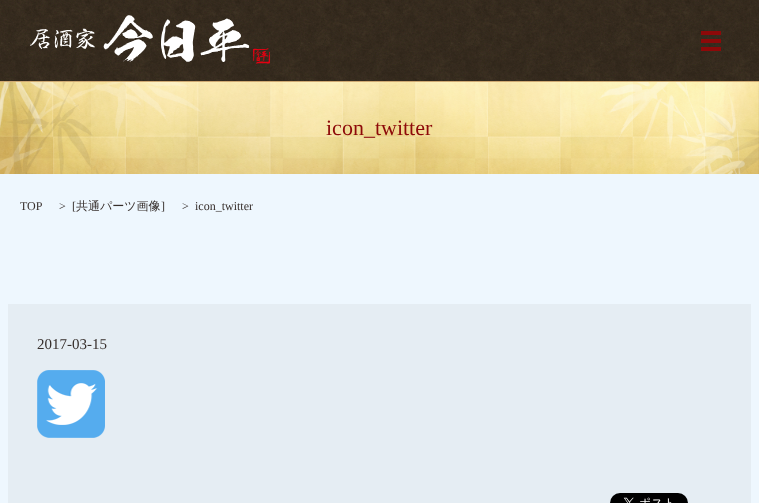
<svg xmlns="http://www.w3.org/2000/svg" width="759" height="503">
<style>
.a{font:22px Liberation Serif;fill:#8d0909}
.b{font:12px Liberation Serif;fill:#362e2b}
.c{font:500 12px WenQuanYi Zen Hei;fill:#362e2b}
.d{font:15px Liberation Serif;fill:#362e2b}
</style>
<rect width="100%" height="100%" fill="#eef7fe"/>
<image href="1.png" x="0" y="0" width="759" height="81"/>
<path fill="#cfa972" d="M0 81h759v1H0z"/>
<image href="2.png" x="30" y="15" width="240" height="49"/>
<path fill="#8d0909" d="M701 31h20v4H701z"/>
<path fill="#8d0909" d="M701 39h20v4H701z"/>
<path fill="#8d0909" d="M701 47h20v4H701z"/>
<image href="3.png" x="0" y="82" width="759" height="92"/>
<path fill="#e5edf3" d="M8 304h743v199H8z"/>
<image href="4.png" x="37" y="370" width="68" height="68"/>
<image href="5.png" x="610" y="493" width="78" height="10"/>
<text class="a" x="326" y="135">icon_twitter</text>
<text class="b" x="20" y="210">TOP</text>
<text class="b" x="59" y="210">&gt;</text>
<text class="b" x="72" y="210">[</text>
<text class="c" x="76" y="210">共通パーツ画像</text>
<text class="b" x="161" y="210">]</text>
<text class="b" x="182" y="210">&gt;</text>
<text class="b" x="195" y="210">icon_twitter</text>
<text class="d" x="37" y="349">2017-03-15</text>
</svg>
